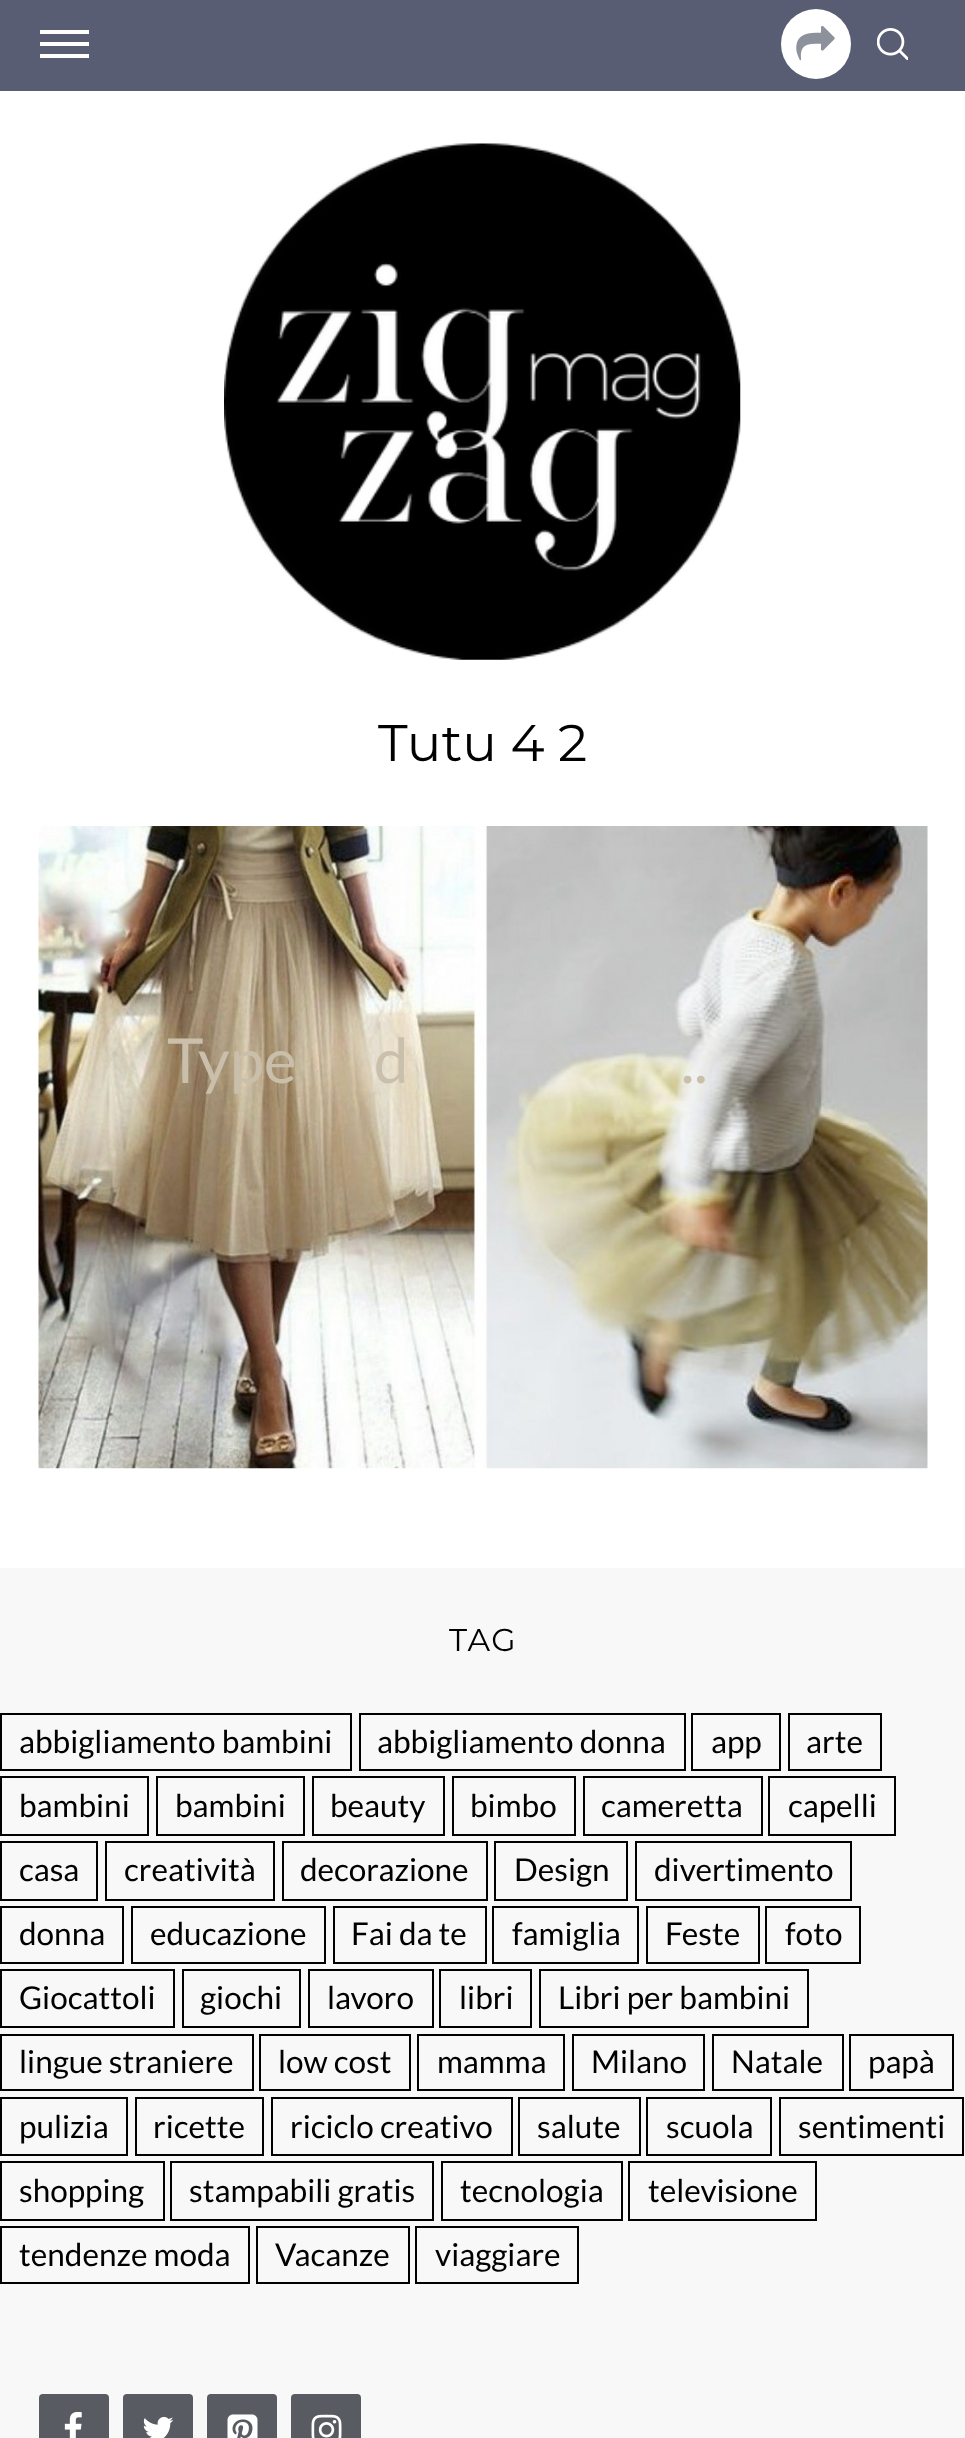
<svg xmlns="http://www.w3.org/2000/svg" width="965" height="2438">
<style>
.a{font:100 51.5px Montserrat;fill:#000}
.b{font:62px Lato;fill:#c9bfaa}
.c{font:100 31.5px Montserrat;letter-spacing:1.5px;fill:#000}
.d{font:31.5px Lato;fill:#000}
</style>
<rect width="100%" height="100%" fill="#fff"/>
<path fill="#585d74" d="M0 0h965v91H0z"/>
<path fill="#fff" d="M40 42h49v4H40z"/>
<path fill="#fff" d="M40 30h49v4H40z"/>
<path fill="#fff" d="M40 54h49v4H40z"/>
<circle fill="#fff" cx="816" cy="44" r="35"/>
<image href="1.png" x="796" y="25" width="39" height="36"/>
<image href="2.png" x="877" y="28" width="31" height="32"/>
<image href="3.png" x="224" y="143" width="517" height="517"/>
<image href="4.png" x="38" y="826" width="890" height="643"/>
<path fill="#f8f8f8" d="M0 1568h965v870H0z"/>
<path fill="none" stroke="#000" stroke-width="2" d="M1 1714h350v56H1z"/>
<path fill="none" stroke="#000" stroke-width="2" d="M360 1714h325v56H360z"/>
<path fill="none" stroke="#000" stroke-width="2" d="M692 1714h88v56H692z"/>
<path fill="none" stroke="#000" stroke-width="2" d="M789 1714h92v56H789z"/>
<path fill="none" stroke="#000" stroke-width="2" d="M1 1777h147v58H1z"/>
<path fill="none" stroke="#000" stroke-width="2" d="M157 1777h147v58H157z"/>
<path fill="none" stroke="#000" stroke-width="2" d="M313 1777h131v58H313z"/>
<path fill="none" stroke="#000" stroke-width="2" d="M453 1777h122v58H453z"/>
<path fill="none" stroke="#000" stroke-width="2" d="M584 1777h178v58H584z"/>
<path fill="none" stroke="#000" stroke-width="2" d="M769 1777h126v58H769z"/>
<path fill="none" stroke="#000" stroke-width="2" d="M1 1842h96v58H1z"/>
<path fill="none" stroke="#000" stroke-width="2" d="M106 1842h168v58H106z"/>
<path fill="none" stroke="#000" stroke-width="2" d="M283 1842h204v58H283z"/>
<path fill="none" stroke="#000" stroke-width="2" d="M495 1842h132v58H495z"/>
<path fill="none" stroke="#000" stroke-width="2" d="M636 1842h215v58H636z"/>
<path fill="none" stroke="#000" stroke-width="2" d="M1 1907h122v56H1z"/>
<path fill="none" stroke="#000" stroke-width="2" d="M132 1907h193v56H132z"/>
<path fill="none" stroke="#000" stroke-width="2" d="M334 1907h152v56H334z"/>
<path fill="none" stroke="#000" stroke-width="2" d="M493 1907h145v56H493z"/>
<path fill="none" stroke="#000" stroke-width="2" d="M647 1907h112v56H647z"/>
<path fill="none" stroke="#000" stroke-width="2" d="M766 1907h94v56H766z"/>
<path fill="none" stroke="#000" stroke-width="2" d="M1 1970h173v57H1z"/>
<path fill="none" stroke="#000" stroke-width="2" d="M183 1970h117v57H183z"/>
<path fill="none" stroke="#000" stroke-width="2" d="M309 1970h124v57H309z"/>
<path fill="none" stroke="#000" stroke-width="2" d="M440 1970h91v57H440z"/>
<path fill="none" stroke="#000" stroke-width="2" d="M540 1970h268v57H540z"/>
<path fill="none" stroke="#000" stroke-width="2" d="M1 2035h252v55H1z"/>
<path fill="none" stroke="#000" stroke-width="2" d="M260 2035h150v55H260z"/>
<path fill="none" stroke="#000" stroke-width="2" d="M418 2035h146v55H418z"/>
<path fill="none" stroke="#000" stroke-width="2" d="M573 2035h131v55H573z"/>
<path fill="none" stroke="#000" stroke-width="2" d="M713 2035h130v55H713z"/>
<path fill="none" stroke="#000" stroke-width="2" d="M850 2035h103v55H850z"/>
<path fill="none" stroke="#000" stroke-width="2" d="M1 2098h126v57H1z"/>
<path fill="none" stroke="#000" stroke-width="2" d="M136 2098h127v57H136z"/>
<path fill="none" stroke="#000" stroke-width="2" d="M272 2098h240v57H272z"/>
<path fill="none" stroke="#000" stroke-width="2" d="M519 2098h121v57H519z"/>
<path fill="none" stroke="#000" stroke-width="2" d="M647 2098h124v57H647z"/>
<path fill="none" stroke="#000" stroke-width="2" d="M780 2098h183v57H780z"/>
<path fill="none" stroke="#000" stroke-width="2" d="M1 2162h163v58H1z"/>
<path fill="none" stroke="#000" stroke-width="2" d="M171 2162h262v58H171z"/>
<path fill="none" stroke="#000" stroke-width="2" d="M442 2162h180v58H442z"/>
<path fill="none" stroke="#000" stroke-width="2" d="M629 2162h187v58H629z"/>
<path fill="none" stroke="#000" stroke-width="2" d="M1 2227h248v56H1z"/>
<path fill="none" stroke="#000" stroke-width="2" d="M257 2227h152v56H257z"/>
<path fill="none" stroke="#000" stroke-width="2" d="M416 2227h162v56H416z"/>
<rect fill="#585b61" x="39" y="2394" width="70" height="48" rx="4"/>
<image href="5.png" x="64" y="2411" width="18" height="27"/>
<rect fill="#585b61" x="123" y="2394" width="70" height="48" rx="4"/>
<image href="6.png" x="143" y="2416" width="31" height="22"/>
<rect fill="#585b61" x="207" y="2394" width="70" height="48" rx="4"/>
<image href="7.png" x="227" y="2414" width="31" height="24"/>
<rect fill="#585b61" x="291" y="2394" width="70" height="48" rx="4"/>
<image href="8.png" x="311" y="2414" width="31" height="24"/>
<text class="a" x="378" y="761">Tutu 4 2</text>
<text class="b" x="167" y="1083">Type</text>
<text class="b" x="374" y="1083">d</text>
<text class="b" x="681" y="1083">..</text>
<text class="c" x="449" y="1651">TAG</text>
<text class="d" x="19" y="1753">abbigliamento bambini</text>
<text class="d" x="377" y="1753">abbigliamento donna</text>
<text class="d" x="711" y="1753">app</text>
<text class="d" x="806" y="1753">arte</text>
<text class="d" x="19" y="1817">bambini</text>
<text class="d" x="175" y="1817">bambini</text>
<text class="d" x="330" y="1817">beauty</text>
<text class="d" x="470" y="1817">bimbo</text>
<text class="d" x="601" y="1817">cameretta</text>
<text class="d" x="788" y="1817">capelli</text>
<text class="d" x="19" y="1881">casa</text>
<text class="d" x="124" y="1881">creatività</text>
<text class="d" x="300" y="1881">decorazione</text>
<text class="d" x="514" y="1881">Design</text>
<text class="d" x="654" y="1881">divertimento</text>
<text class="d" x="19" y="1945">donna</text>
<text class="d" x="150" y="1945">educazione</text>
<text class="d" x="351" y="1945">Fai da te</text>
<text class="d" x="512" y="1945">famiglia</text>
<text class="d" x="665" y="1945">Feste</text>
<text class="d" x="785" y="1945">foto</text>
<text class="d" x="19" y="2009">Giocattoli</text>
<text class="d" x="200" y="2009">giochi</text>
<text class="d" x="327" y="2009">lavoro</text>
<text class="d" x="459" y="2009">libri</text>
<text class="d" x="558" y="2009">Libri per bambini</text>
<text class="d" x="19" y="2073">lingue straniere</text>
<text class="d" x="278" y="2073">low cost</text>
<text class="d" x="437" y="2073">mamma</text>
<text class="d" x="591" y="2073">Milano</text>
<text class="d" x="731" y="2073">Natale</text>
<text class="d" x="868" y="2073">papà</text>
<text class="d" x="19" y="2138">pulizia</text>
<text class="d" x="153" y="2138">ricette</text>
<text class="d" x="290" y="2138">riciclo creativo</text>
<text class="d" x="537" y="2138">salute</text>
<text class="d" x="666" y="2138">scuola</text>
<text class="d" x="798" y="2138">sentimenti</text>
<text class="d" x="19" y="2202">shopping</text>
<text class="d" x="189" y="2202">stampabili gratis</text>
<text class="d" x="460" y="2202">tecnologia</text>
<text class="d" x="648" y="2202">televisione</text>
<text class="d" x="19" y="2266">tendenze moda</text>
<text class="d" x="275" y="2266">Vacanze</text>
<text class="d" x="435" y="2266">viaggiare</text>
</svg>
